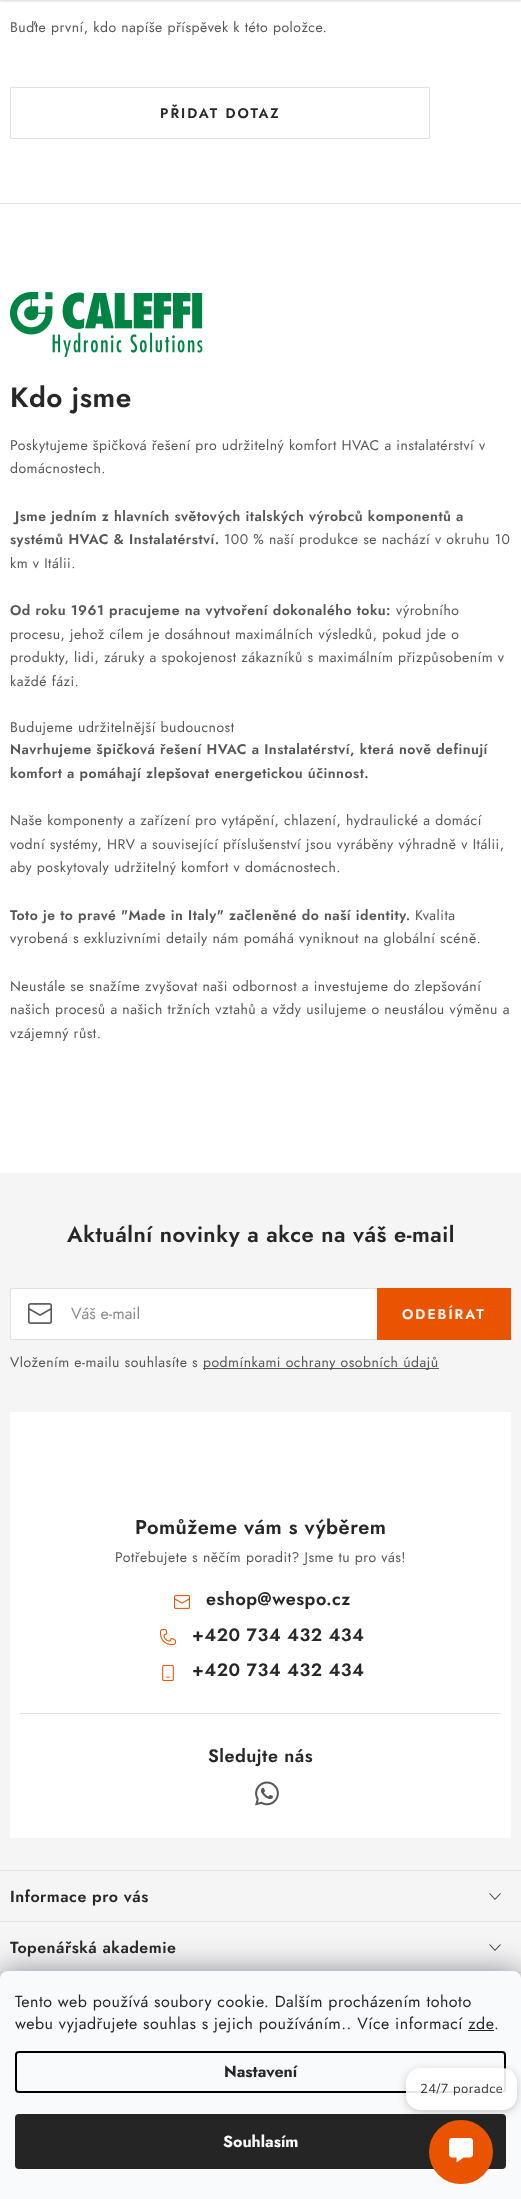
<svg xmlns="http://www.w3.org/2000/svg" width="521" height="2199">
<style>
.a{font:14px Jost;letter-spacing:0.5px;fill:#555658}
.b{font:600 14px Jost;letter-spacing:2px;fill:#252729}
.c{font:600 28px Jost;letter-spacing:0.5px;fill:#252729}
.d{font:600 14px Jost;letter-spacing:0.5px;fill:#555658}
.e{font:600 22px Jost;letter-spacing:0.5px;fill:#252729}
.f{font:16px Jost;fill:#888c92}
.g{font:600 14px Jost;letter-spacing:2px;fill:#fff}
.h{font:600 20px Jost;letter-spacing:0.5px;fill:#252729}
.i{font:600 18px Jost;letter-spacing:0.5px;fill:#252729}
.j{font:600 16px Jost;letter-spacing:0.5px;fill:#252729}
.k{font:16px Jost;letter-spacing:0.5px;fill:#252729}
.l{font:bold 16px Jost;fill:#252729}
.m{font:bold 16px Jost;fill:#f8fafb}
.n{font:13px Nunito;letter-spacing:0.5px;fill:#333}
</style>
<defs>
<clipPath id="clip1"><path d="M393 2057h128v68h-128zm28 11h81c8.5 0 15 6.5 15 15v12c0 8.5-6.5 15-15 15h-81c-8.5 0-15-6.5-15-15v-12c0-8.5 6.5-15 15-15z" clip-rule="evenodd"/></clipPath>
</defs>
<rect width="100%" height="100%" fill="#fff"/>
<path fill="#00000029" filter="blur(1px)" d="M0 -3h521v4H0z"/>
<path fill="none" stroke="#e1e1e2" d="M10.5 87.5h419v51H10.5z"/>
<path fill="#e1e1e2" d="M0 203h521v1H0z"/>
<image href="1.png" x="10" y="292" width="193" height="65"/>
<path fill="#f5f5f5" d="M0 1173h521v806H0z"/>
<path fill="#fff" d="M11 1289h366v50H11z"/>
<path fill="none" stroke="#e1e1e2" d="M10.5 1288.5h500v51H10.5z"/>
<image href="2.png" x="28" y="1303" width="24" height="21"/>
<path fill="#ea5400" d="M377 1288h134v52H377z"/>
<path fill="#555658" d="M203 1368h236v1H203z"/>
<path fill="#fff" d="M10 1412h501v426H10z"/>
<image href="3.png" x="174" y="1595" width="16" height="14"/>
<image href="4.png" x="160" y="1629" width="16" height="16"/>
<image href="5.png" x="162" y="1665" width="12" height="16"/>
<path fill="#e1e1e2" d="M20 1713h481v1H20z"/>
<image href="6.png" x="255" y="1781" width="24" height="25"/>
<path fill="#e1e1e2" d="M0 1870h521v1H0z"/>
<image href="7.png" x="489" y="1893" width="12" height="7"/>
<path fill="#e1e1e2" d="M0 1921h521v1H0z"/>
<image href="7.png" x="489" y="1944" width="12" height="7"/>
<path fill="#e1e1e2" d="M0 1972h521v1H0z"/>
<rect fill="#1b193980" filter="blur(15px)" y="1971" width="521" height="228" rx="8"/>
<path fill="#f8fafb" d="M8 1971h505c4.5 0 8 3.5 8 8v220h-521v-220c0-4.5 3.5-8 8-8z"/>
<rect fill="none" stroke="#000" stroke-width="2" x="16" y="2052" width="489" height="40" rx="3"/>
<rect fill="#252525" x="15" y="2114" width="491" height="55" rx="4"/>
<g clip-path="url(#clip1)">
<rect fill="#00000033" filter="blur(4px)" x="406" y="2070" width="111" height="42" rx="15"/>
</g>
<rect fill="#ffffffe6" x="406" y="2068" width="111" height="42" rx="15"/>
<circle fill="#ea5400" stroke="#ea5400" stroke-width="4" cx="461" cy="2152" r="30"/>
<image href="8.png" x="449" y="2138" width="24" height="24"/>
<text class="a" x="10" y="32">Buďte první, kdo napíše příspěvek k této položce.</text>
<text class="b" x="160" y="118">PŘIDAT DOTAZ</text>
<text class="c" x="10" y="407">Kdo jsme</text>
<text class="a" x="10" y="450">Poskytujeme špičková řešení pro udržitelný komfort HVAC a instalatérství v</text>
<text class="a" x="10" y="473">domácnostech.</text>
<text class="d" x="15" y="521">Jsme jedním z hlavních světových italských výrobců komponentů a</text>
<text class="d" x="10" y="544">systémů HVAC &amp; Instalatérství.</text>
<text class="a" x="224" y="544">100 % naší produkce se nachází v okruhu 10</text>
<text class="a" x="10" y="568">km v Itálii.</text>
<text class="d" x="10" y="615">Od roku 1961 pracujeme na vytvoření dokonalého toku:</text>
<text class="a" x="396" y="615">výrobního</text>
<text class="a" x="10" y="639">procesu, jehož cílem je dosáhnout maximálních výsledků, pokud jde o</text>
<text class="a" x="10" y="662">produkty, lidi, záruky a spokojenost zákazníků s maximálním přizpůsobením v</text>
<text class="a" x="10" y="686">každé fázi.</text>
<text class="a" x="10" y="732">Budujeme udržitelnější budoucnost</text>
<text class="d" x="10" y="754">Navrhujeme špičková řešení HVAC a Instalatérství, která nově definují</text>
<text class="d" x="10" y="778">komfort a pomáhají zlepšovat energetickou účinnost.</text>
<text class="a" x="10" y="825">Naše komponenty a zařízení pro vytápění, chlazení, hydraulické a domácí</text>
<text class="a" x="10" y="849">vodní systémy, HRV a související příslušenství jsou vyráběny výhradně v Itálii,</text>
<text class="a" x="10" y="872">aby poskytovaly udržitelný komfort v domácnostech.</text>
<text class="d" x="10" y="920">Toto je to pravé "Made in Italy" začleněné do naší identity.</text>
<text class="a" x="415" y="920">Kvalita</text>
<text class="a" x="10" y="943">vyrobená s exkluzivními detaily nám pomáhá vyniknout na globální scéně.</text>
<text class="a" x="10" y="991">Neustále se snažíme zvyšovat naši odbornost a investujeme do zlepšování</text>
<text class="a" x="10" y="1014">našich procesů a našich tržních vztahů a vždy usilujeme o neustálou výměnu a</text>
<text class="a" x="10" y="1038">vzájemný růst.</text>
<text class="e" x="67" y="1242">Aktuální novinky a akce na váš e-mail</text>
<text class="f" x="71" y="1319">Váš e-mail</text>
<text class="g" x="402" y="1319">ODEBÍRAT</text>
<text class="a" x="10" y="1367">Vložením e-mailu souhlasíte s</text>
<text class="a" x="203" y="1367">podmínkami ochrany osobních údajů</text>
<text class="h" x="135" y="1534">Pomůžeme vám s výběrem</text>
<text class="a" x="115" y="1562">Potřebujete s něčím poradit? Jsme tu pro vás!</text>
<text class="i" x="206" y="1605">eshop@wespo.cz</text>
<text class="i" x="192" y="1641">+420 734 432 434</text>
<text class="i" x="192" y="1676">+420 734 432 434</text>
<text class="i" x="208" y="1762">Sledujte nás</text>
<text class="j" x="10" y="1902">Informace pro vás</text>
<text class="j" x="10" y="1953">Topenářská akademie</text>
<text class="k" x="15" y="2007">Tento web používá soubory cookie. Dalším procházením tohoto</text>
<text class="k" x="15" y="2029">webu vyjadřujete souhlas s jejich používáním.. Více informací zde</text>
<text class="k" x="494" y="2029">.</text>
<path fill="#252525" d="M468 2030h26v1H468z"/>
<text class="l" x="224" y="2077">Nastavení</text>
<text class="m" x="223" y="2147">Souhlasím</text>
<text class="n" x="420" y="2093">24/7 poradce</text>
</svg>
